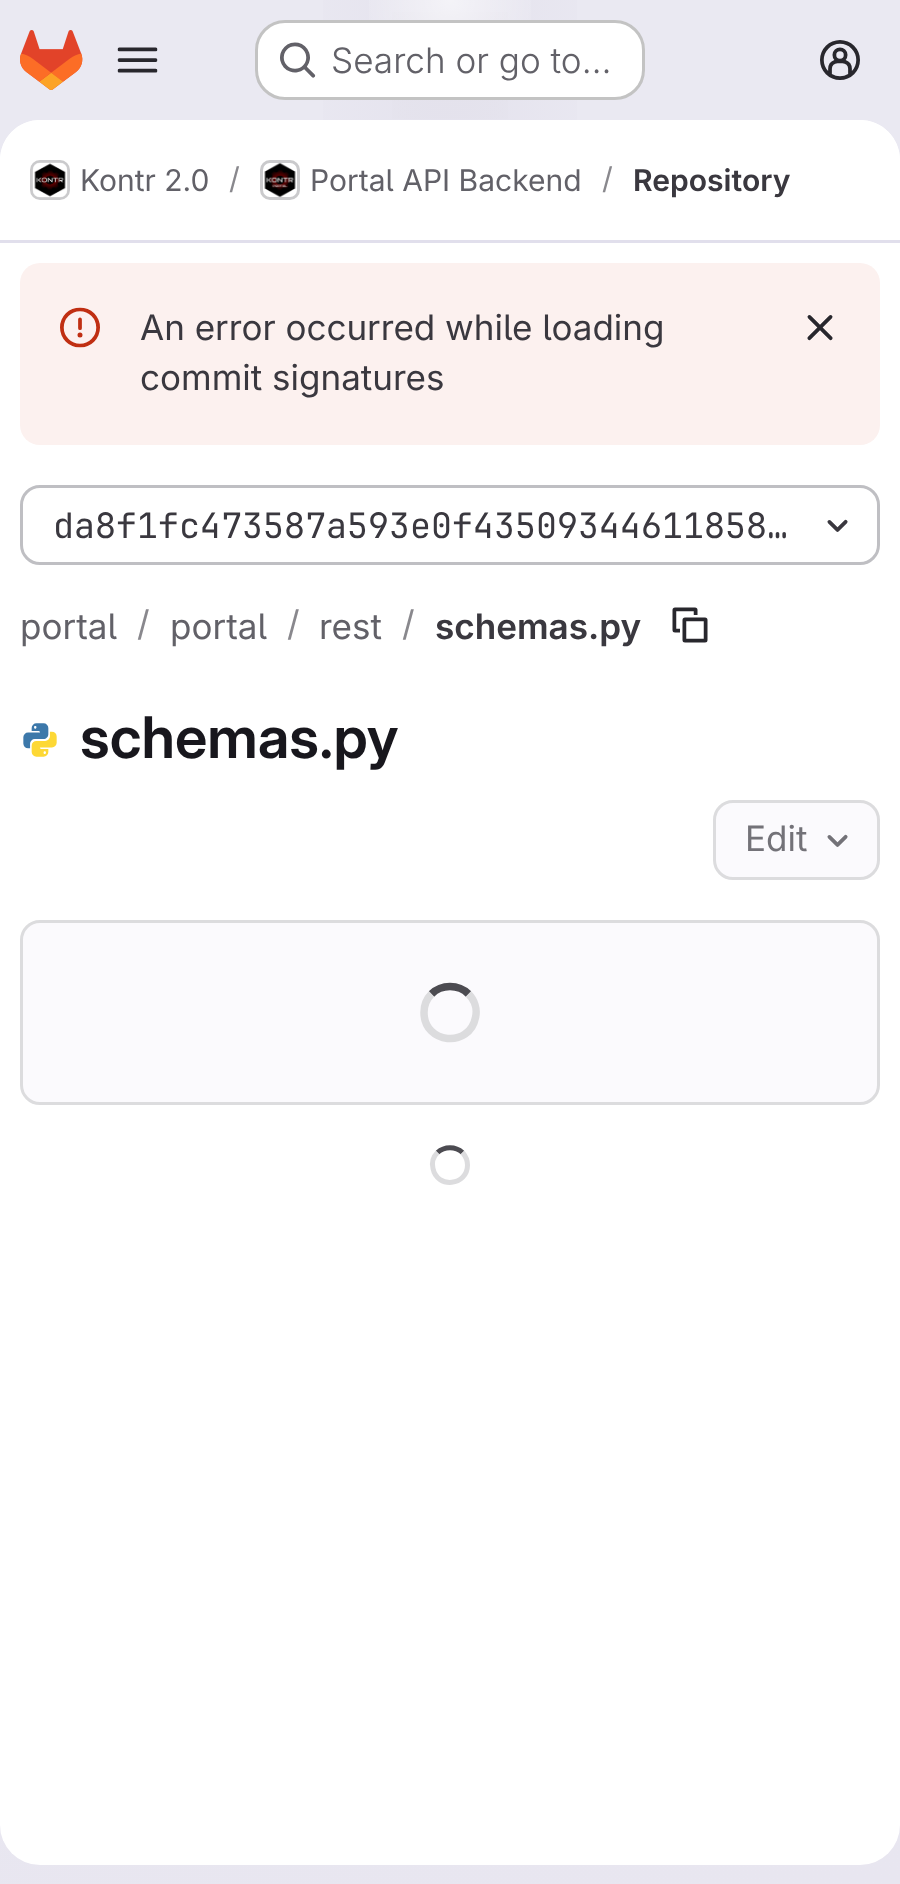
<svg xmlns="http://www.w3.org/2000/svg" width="900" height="1884">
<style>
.a{font:300 35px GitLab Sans;fill:#626168}
.b{font:30px GitLab Sans;fill:#626168}
.c{font:30px GitLab Sans;fill:#89888d}
.d{font:600 30px 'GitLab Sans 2';fill:#3a383f}
.e{font:35px GitLab Sans;fill:#3a383f}
.f{font:35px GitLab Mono;fill:#3a383f}
.g{font:35px GitLab Sans;fill:#626168}
.h{font:35px GitLab Sans;fill:#89888d}
.i{font:600 35px 'GitLab Sans 2';fill:#3a383f}
.j{font:600 57.5px GitLab Sans;fill:#18171d}
.k{font:35px GitLab Sans;fill:#737278}
</style>
<defs>
<linearGradient id="g1" gradientUnits="userSpaceOnUse" x1="625" y1="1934" x2="275" y2="-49"><stop offset="0" stop-color="#e8e6f0"/><stop offset="0.7" stop-color="#eae9f2"/></linearGradient>
<radialGradient id="g2" gradientUnits="userSpaceOnUse" cx="0" cy="0" r="1" gradientTransform="matrix(450 0 0 1885 450 0)"><stop offset="0" stop-color="#e4e2ed"/><stop offset="0.39" stop-color="#e4e2ed" stop-opacity="0"/></radialGradient>
<radialGradient id="g3" gradientUnits="userSpaceOnUse" cx="0" cy="0" r="1" gradientTransform="matrix(450 0 0 1885 450 0)"><stop offset="0" stop-color="#e4e2ec"/><stop offset="0.28" stop-color="#e4e2ec" stop-opacity="0"/></radialGradient>
<radialGradient id="g4" gradientUnits="userSpaceOnUse" cx="450" cy="0" r="1938"><stop offset="0" stop-color="#fff" stop-opacity="0.6"/><stop offset="0.05" stop-color="#fff" stop-opacity="0"/></radialGradient>
</defs>
<rect width="100%" height="100%" fill="#fff"/>
<path fill="url(#g1)" d="M0 0h900v1884H0z"/>
<path fill="url(#g2)" d="M323 0h254v120H323z"/>
<path fill="url(#g3)" d="M392 12h116v107H392z"/>
<path fill="url(#g4)" d="M369 0h162v20H369z"/>
<image href="1.png" x="20" y="30" width="63" height="60"/>
<image href="2.png" x="117" y="47" width="41" height="26"/>
<rect fill="#fff" x="255" y="20" width="390" height="80" rx="30"/>
<rect fill="none" stroke="#0505063d" stroke-width="3" x="256.5" y="21.5" width="387" height="77" rx="28.5"/>
<image href="3.png" x="280" y="42" width="36" height="36"/>
<image href="4.png" x="820" y="40" width="40" height="40"/>
<rect fill="#fff" y="120" width="900" height="1745" rx="40"/>
<path fill="#fff" d="M40 120h820c22 0 40 18 40 40v83h-900v-83c0-22 18-40 40-40z"/>
<path fill="#e1dfec" d="M0 240h900v3H0z"/>
<rect fill="none" stroke="#dcdcde" stroke-width="3" x="31.5" y="161.5" width="37" height="37" rx="8.5"/>
<image href="5.png" x="32" y="162" width="36" height="36"/>
<rect fill="none" stroke="#05050614" stroke-width="3" x="31.5" y="161.5" width="37" height="37" rx="8.5"/>
<rect fill="none" stroke="#dcdcde" stroke-width="3" x="261.5" y="161.5" width="37" height="37" rx="8.5"/>
<image href="6.png" x="264" y="162" width="32" height="36"/>
<rect fill="none" stroke="#05050614" stroke-width="3" x="261.5" y="161.5" width="37" height="37" rx="8.5"/>
<rect fill="#fcf1ef" x="20" y="263" width="860" height="182" rx="20"/>
<image href="7.png" x="60" y="307" width="40" height="41"/>
<image href="8.png" x="807" y="315" width="26" height="26"/>
<rect fill="none" stroke="#bfbfc3" stroke-width="3" x="21.5" y="486.5" width="857" height="77" rx="18.5"/>
<image href="9.png" x="827" y="519" width="21" height="13"/>
<image href="10.png" x="672" y="607" width="36" height="36"/>
<image href="11.png" x="23" y="723" width="34" height="34"/>
<rect fill="#fbfafd" stroke="#dcdcde" stroke-width="3" x="714.5" y="801.5" width="164" height="77" rx="18.5"/>
<image href="12.png" x="827" y="834" width="21" height="13"/>
<rect fill="#fbfafd" stroke="#dcdcde" stroke-width="3" x="21.5" y="921.5" width="857" height="182" rx="18.5"/>
<path fill="none" stroke="#4c4b51" stroke-width="7.5" d="M431.5 994c10-10 27-10 37 0"/>
<path fill="none" stroke="#dcdcde" stroke-width="7.5" d="M468.5 994c6 6 9 15 7 23.5c-6 31-51.5 26.5-51.5-5c0-7 2.5-13.5 7.5-18.5"/>
<path fill="none" stroke="#4c4b51" stroke-width="5" d="M437.5 1152.5c7-6.5 18-6.5 25 0"/>
<path fill="none" stroke="#dcdcde" stroke-width="5" d="M462.5 1152.5c3 3.5 5 8 5 12.5c0 21-30.5 24-34.5 3.5c-1.5-6 .5-12 4.5-16"/>
<text class="a" x="331" y="73">Search or go to…</text>
<text class="b" x="80" y="191">Kontr 2.0</text>
<text class="c" x="229" y="189">/</text>
<text class="b" x="310" y="191">Portal API Backend</text>
<text class="c" x="602" y="189">/</text>
<text class="d" x="633" y="191">Repository</text>
<text class="e" x="140" y="340">An error occurred while loading</text>
<text class="e" x="140" y="390">commit signatures</text>
<text class="f" x="53" y="538">da8f1fc473587a593e0f43509344611858…</text>
<text class="g" x="20" y="639">portal</text>
<text class="h" x="137" y="636">/</text>
<text class="g" x="170" y="639">portal</text>
<text class="h" x="287" y="636">/</text>
<text class="g" x="319" y="639">rest</text>
<text class="h" x="402" y="636">/</text>
<text class="i" x="435" y="639">schemas.py</text>
<text class="j" x="80" y="758">schemas.py</text>
<text class="k" x="745" y="851">Edit</text>
</svg>
